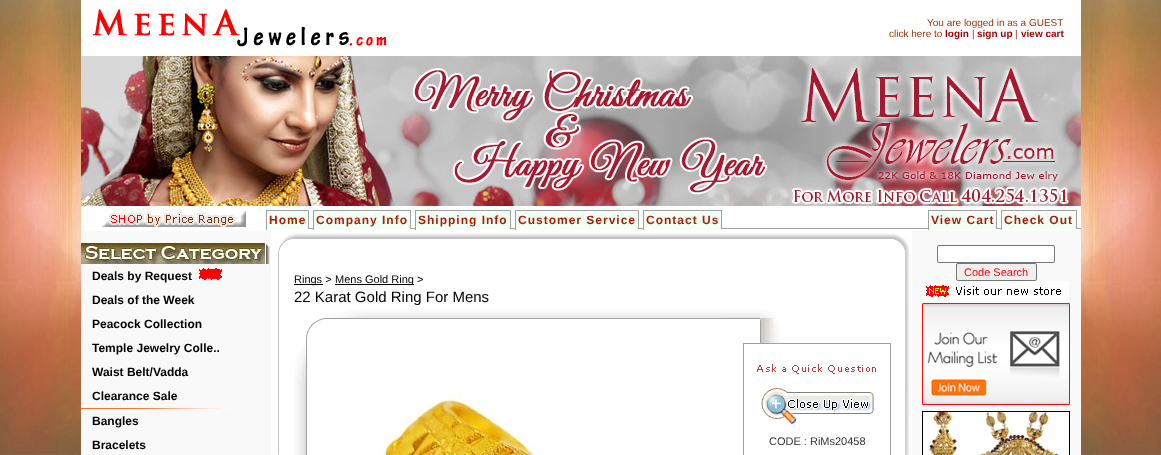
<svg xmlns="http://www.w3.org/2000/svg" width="1161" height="455">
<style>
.a{font:10px Liberation Sans;fill:#930}
.b{font:bold 10px Liberation Sans;fill:#900}
.c{font:bold 12px Liberation Sans;letter-spacing:1px;fill:#aa1f00}
.d{font:bold 12px Liberation Sans;fill:#000}
.e{font:11px Liberation Sans;fill:#000}
.f{font:15px Liberation Sans;fill:#000}
.g{font:11px Liberation Sans;fill:#333}
.h{font:11px Liberation Sans;fill:#f00}
</style>
<rect width="100%" height="100%" fill="#fff"/>
<image href="1.png" x="0" y="0" width="1161" height="455"/>
<path fill="#fff" d="M81 0h1000v56H81z"/>
<image href="2.png" x="92" y="9" width="295" height="38"/>
<image href="3.png" x="81" y="56" width="1000" height="150"/>
<path fill="#fff" d="M81 206h1000v25H81z"/>
<image href="4.png" x="101" y="210" width="145" height="17"/>
<path fill="#a1a1a1" d="M309 228h772v1H309z"/>
<path fill="#f2fff7" d="M267 211h41v18H267z"/>
<path fill="#a1a1a1" d="M266 210h43v1H266z"/>
<path fill="#a1a1a1" d="M308 210h1v20H308z"/>
<path fill="#fff" d="M308 229h1v1H308z"/>
<path fill="#a1a1a1" d="M266 210h1v20H266z"/>
<path fill="#f2fff7" d="M314 211h96v18H314z"/>
<path fill="#a1a1a1" d="M313 210h98v1H313z"/>
<path fill="#a1a1a1" d="M410 210h1v20H410z"/>
<path fill="#fff" d="M410 229h1v1H410z"/>
<path fill="#a1a1a1" d="M313 210h1v20H313z"/>
<path fill="#f2fff7" d="M416 211h94v18H416z"/>
<path fill="#a1a1a1" d="M415 210h96v1H415z"/>
<path fill="#a1a1a1" d="M510 210h1v20H510z"/>
<path fill="#fff" d="M510 229h1v1H510z"/>
<path fill="#a1a1a1" d="M415 210h1v20H415z"/>
<path fill="#f2fff7" d="M516 211h122v18H516z"/>
<path fill="#a1a1a1" d="M515 210h124v1H515z"/>
<path fill="#a1a1a1" d="M638 210h1v20H638z"/>
<path fill="#fff" d="M638 229h1v1H638z"/>
<path fill="#a1a1a1" d="M515 210h1v20H515z"/>
<path fill="#f2fff7" d="M644 211h77v18H644z"/>
<path fill="#a1a1a1" d="M643 210h79v1H643z"/>
<path fill="#a1a1a1" d="M721 210h1v20H721z"/>
<path fill="#fff" d="M721 229h1v1H721z"/>
<path fill="#a1a1a1" d="M643 210h1v20H643z"/>
<path fill="#f2fff7" d="M929 211h67v18H929z"/>
<path fill="#a1a1a1" d="M928 210h69v1H928z"/>
<path fill="#a1a1a1" d="M996 210h1v20H996z"/>
<path fill="#fff" d="M996 229h1v1H996z"/>
<path fill="#a1a1a1" d="M928 210h1v20H928z"/>
<path fill="#f2fff7" d="M1002 211h74v18H1002z"/>
<path fill="#a1a1a1" d="M1001 210h76v1H1001z"/>
<path fill="#a1a1a1" d="M1076 210h1v20H1076z"/>
<path fill="#fff" d="M1076 229h1v1H1076z"/>
<path fill="#a1a1a1" d="M1001 210h1v20H1001z"/>
<path fill="#fff" d="M271 231h641v224H271z"/>
<path fill="#f9f9f9" d="M81 231h190v224H81z"/>
<image href="5.png" x="81" y="243" width="190" height="21"/>
<image href="6.png" x="199" y="268" width="23" height="12"/>
<image href="7.png" x="81" y="408" width="150" height="1"/>
<image href="8.png" x="278" y="233" width="632" height="222"/>
<path fill="#000" d="M294 284h29v1H294z"/>
<path fill="#000" d="M335 284h79v1H335z"/>
<image href="9.png" x="294" y="309" width="486" height="146"/>
<image href="10.png" x="380" y="386" width="161" height="69"/>
<path fill="#fff" d="M760 344h20v111H760z"/>
<path fill="#a1a1a1" d="M743 343h148v1H743z"/>
<path fill="#a1a1a1" d="M890 343h1v112H890z"/>
<path fill="#a1a1a1" d="M743 343h1v112H743z"/>
<image href="11.png" x="757" y="364" width="119" height="10"/>
<image href="12.png" x="761" y="388" width="113" height="36"/>
<path fill="#f9f9f9" d="M912 231h169v224H912z"/>
<rect fill="#fff" stroke="#767676" x="937.5" y="245.5" width="117" height="17" rx="1.5"/>
<rect fill="#efefef" stroke="#767676" x="956.5" y="263.5" width="80" height="17" rx="1.5"/>
<image href="13.png" x="923" y="281" width="146" height="21"/>
<image href="14.png" x="922" y="303" width="148" height="102"/>
<image href="15.png" x="922" y="411" width="148" height="44"/>
<text class="a" x="927" y="26">You are logged in as a GUEST</text>
<text class="a" x="889" y="37">click here to</text>
<text class="b" x="945" y="37">login</text>
<text class="a" x="972" y="37">|</text>
<text class="b" x="977" y="37">sign up</text>
<text class="a" x="1015" y="37">|</text>
<text class="b" x="1021" y="37">view cart</text>
<text class="c" x="269" y="224">Home</text>
<text class="c" x="316" y="224">Company Info</text>
<text class="c" x="418" y="224">Shipping Info</text>
<text class="c" x="518" y="224">Customer Service</text>
<text class="c" x="646" y="224">Contact Us</text>
<text class="c" x="931" y="224">View Cart</text>
<text class="c" x="1004" y="224">Check Out</text>
<text class="d" x="92" y="280">Deals by Request</text>
<text class="d" x="92" y="304">Deals of the Week</text>
<text class="d" x="92" y="328">Peacock Collection</text>
<text class="d" x="92" y="352">Temple Jewelry Colle..</text>
<text class="d" x="92" y="376">Waist Belt/Vadda</text>
<text class="d" x="92" y="400">Clearance Sale</text>
<text class="d" x="92" y="425">Bangles</text>
<text class="d" x="92" y="449">Bracelets</text>
<text class="e" x="294" y="283">Rings &gt;</text>
<text class="e" x="335" y="283">Mens Gold Ring &gt;</text>
<text class="f" x="294" y="302">22 Karat Gold Ring For Mens</text>
<text class="g" x="769" y="445">CODE : RiMs20458</text>
<text class="h" x="964" y="276">Code Search</text>
</svg>
